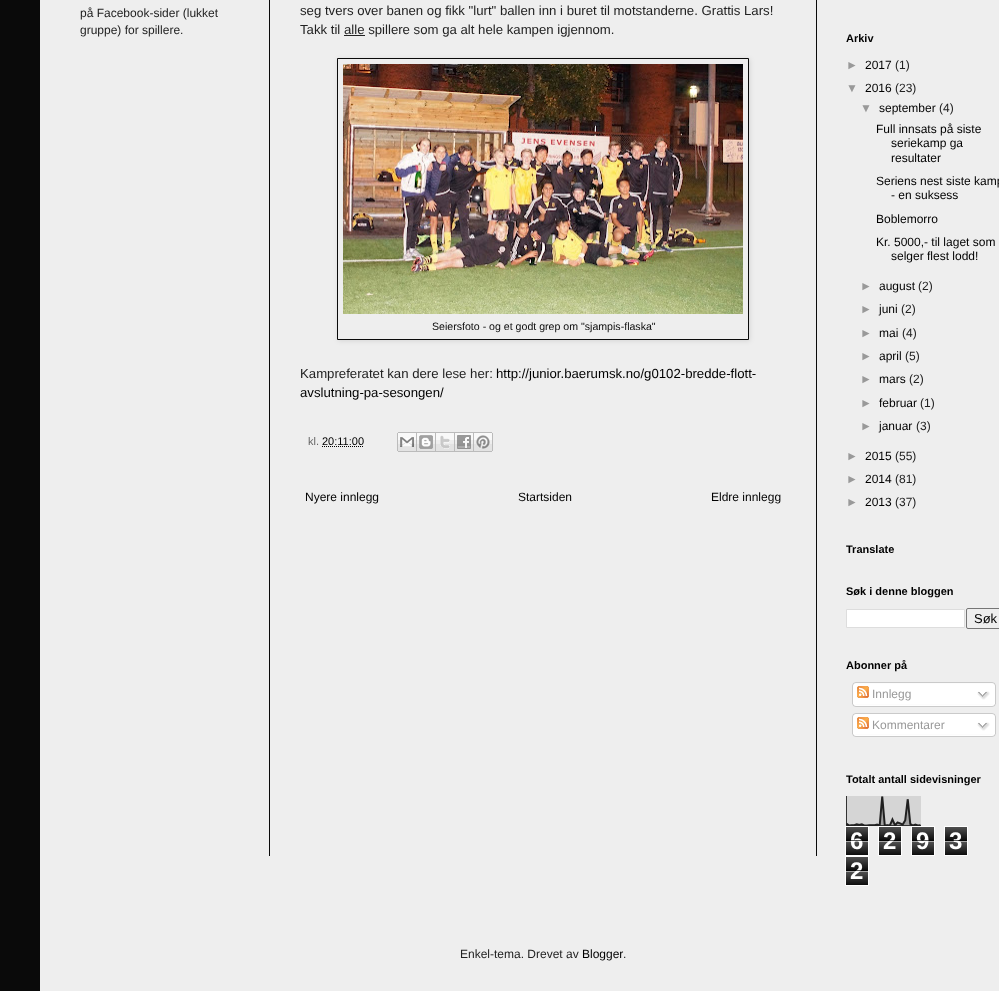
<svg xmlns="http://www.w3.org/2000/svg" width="999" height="991">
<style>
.a{font:12px Liberation Sans;fill:#222}
.b{font:13.2px Liberation Sans;fill:#222}
.c{font:10.6px Liberation Sans;fill:#0a0a0a}
.d{font:13.2px Liberation Sans;fill:#000}
.e{font:11px Liberation Sans;fill:#666}
.f{font:11px Liberation Sans;fill:#000}
.g{font:12px Liberation Sans;fill:#000}
.h{font:bold 11px Liberation Sans;fill:#000}
.i{font:12px Liberation Sans;fill:#999}
.j{font:13px Liberation Sans;fill:#000}
.k{font:bold 24px Liberation Sans;fill:#fff}
</style>
<defs>
<clipPath id="clip1"><path d="M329 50h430v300h-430zm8 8h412v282h-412z" clip-rule="evenodd"/></clipPath>
</defs>
<rect width="100%" height="100%" fill="#0a0a0a"/>
<path fill="#eee" d="M40 0h959v991H40z"/>
<path fill="#0a0a0a" d="M269 0h1v856H269z"/>
<path fill="#0a0a0a" d="M816 0h1v856H816z"/>
<path fill="#222" d="M344 35h21v1H344z"/>
<g clip-path="url(#clip1)">
<path fill="#0000001a" filter="blur(2.5px)" d="M338 59h412v282H338z"/>
</g>
<path fill="none" stroke="#0a0a0a" d="M337.5 58.5h411v281H337.5z"/>
<image href="1.png" x="343" y="64" width="400" height="250"/>
<path fill="none" stroke="#000" stroke-dasharray="1 1" d="M322 446.5h41"/>
<image href="2.png" x="397" y="432" width="20" height="20"/>
<image href="3.png" x="417" y="432" width="19" height="20"/>
<image href="4.png" x="436" y="432" width="19" height="20"/>
<image href="5.png" x="455" y="432" width="19" height="20"/>
<image href="6.png" x="474" y="432" width="19" height="20"/>
<path fill="#fff" stroke="#ddd" d="M846.5 609.5h118v18H846.5z"/>
<rect fill="none" stroke="#767676" x="966.5" y="608.5" width="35" height="20" rx="1.5"/>
<image href="7.png" x="852" y="682" width="144" height="22"/>
<image href="8.png" x="857" y="686" width="12" height="12"/>
<image href="9.png" x="977" y="691" width="13" height="9"/>
<image href="10.png" x="852" y="704" width="144" height="3"/>
<image href="11.png" x="852" y="713" width="144" height="21"/>
<image href="8.png" x="857" y="717" width="12" height="12"/>
<image href="9.png" x="977" y="722" width="13" height="9"/>
<image href="10.png" x="852" y="734" width="144" height="3"/>
<image href="12.png" x="846" y="796" width="75" height="30"/>
<image href="13.png" x="846" y="827" width="22" height="28"/>
<path fill="none" stroke="#fff" d="M845.5 826.5h23v29H845.5z"/>
<image href="13.png" x="879" y="827" width="22" height="28"/>
<path fill="none" stroke="#fff" d="M878.5 826.5h23v29H878.5z"/>
<image href="13.png" x="912" y="827" width="22" height="28"/>
<path fill="none" stroke="#fff" d="M911.5 826.5h23v29H911.5z"/>
<image href="13.png" x="945" y="827" width="22" height="28"/>
<path fill="none" stroke="#fff" d="M944.5 826.5h23v29H944.5z"/>
<image href="13.png" x="846" y="857" width="22" height="28"/>
<path fill="none" stroke="#fff" d="M845.5 856.5h23v29H845.5z"/>
<text class="a" x="80" y="17">på Facebook-sider (lukket</text>
<text class="a" x="80" y="34">gruppe) for spillere.</text>
<text class="b" x="300" y="15">seg tvers over banen og fikk "lurt" ballen inn i buret til motstanderne. Grattis Lars!</text>
<text class="b" x="300" y="34">Takk til alle spillere som ga alt hele kampen igjennom.</text>
<text class="c" x="432" y="330">Seiersfoto - og et godt grep om "sjampis-flaska"</text>
<text class="b" x="300" y="378">Kampreferatet kan dere lese her:</text>
<text class="d" x="496" y="378">http://junior.baerumsk.no/g0102-bredde-flott-</text>
<text class="d" x="300" y="397">avslutning-pa-sesongen/</text>
<text class="e" x="308" y="445">kl.</text>
<text class="f" x="322" y="445">20:11:00</text>
<text class="g" x="305" y="501">Nyere innlegg</text>
<text class="g" x="518" y="501">Startsiden</text>
<text class="g" x="711" y="501">Eldre innlegg</text>
<text class="h" x="846" y="42">Arkiv</text>
<text class="i" x="846" y="69">►</text>
<text class="g" x="865" y="69">2017</text>
<text class="a" x="895" y="69">(1)</text>
<text class="i" x="846" y="92">▼</text>
<text class="g" x="865" y="92">2016</text>
<text class="a" x="895" y="92">(23)</text>
<text class="i" x="860" y="112">▼</text>
<text class="g" x="879" y="112">september</text>
<text class="a" x="939" y="112">(4)</text>
<text class="g" x="876" y="133">Full innsats på siste</text>
<text class="g" x="891" y="147">seriekamp ga</text>
<text class="g" x="891" y="162">resultater</text>
<text class="g" x="876" y="185">Seriens nest siste kamp</text>
<text class="g" x="891" y="199">- en suksess</text>
<text class="g" x="876" y="223">Boblemorro</text>
<text class="g" x="876" y="246">Kr. 5000,- til laget som</text>
<text class="g" x="891" y="260">selger flest lodd!</text>
<text class="i" x="860" y="290">►</text>
<text class="g" x="879" y="290">august</text>
<text class="a" x="918" y="290">(2)</text>
<text class="i" x="860" y="313">►</text>
<text class="g" x="879" y="313">juni</text>
<text class="a" x="901" y="313">(2)</text>
<text class="i" x="860" y="337">►</text>
<text class="g" x="879" y="337">mai</text>
<text class="a" x="902" y="337">(4)</text>
<text class="i" x="860" y="360">►</text>
<text class="g" x="879" y="360">april</text>
<text class="a" x="905" y="360">(5)</text>
<text class="i" x="860" y="383">►</text>
<text class="g" x="879" y="383">mars</text>
<text class="a" x="909" y="383">(2)</text>
<text class="i" x="860" y="407">►</text>
<text class="g" x="879" y="407">februar</text>
<text class="a" x="920" y="407">(1)</text>
<text class="i" x="860" y="430">►</text>
<text class="g" x="879" y="430">januar</text>
<text class="a" x="916" y="430">(3)</text>
<text class="i" x="846" y="460">►</text>
<text class="g" x="865" y="460">2015</text>
<text class="a" x="895" y="460">(55)</text>
<text class="i" x="846" y="483">►</text>
<text class="g" x="865" y="483">2014</text>
<text class="a" x="895" y="483">(81)</text>
<text class="i" x="846" y="506">►</text>
<text class="g" x="865" y="506">2013</text>
<text class="a" x="895" y="506">(37)</text>
<text class="h" x="846" y="553">Translate</text>
<text class="h" x="846" y="595">Søk i denne bloggen</text>
<text class="j" x="974" y="623">Søk</text>
<text class="h" x="846" y="669">Abonner på</text>
<text class="i" x="872" y="698">Innlegg</text>
<text class="i" x="872" y="729">Kommentarer</text>
<text class="h" x="846" y="783">Totalt antall sidevisninger</text>
<text class="k" x="850" y="849">6</text>
<path fill="#000000a6" d="M846 840h22v1H846z"/>
<path fill="#ffffffa6" d="M846 841h22v1H846z"/>
<text class="k" x="883" y="849">2</text>
<path fill="#000000a6" d="M879 840h22v1H879z"/>
<path fill="#ffffffa6" d="M879 841h22v1H879z"/>
<text class="k" x="916" y="849">9</text>
<path fill="#000000a6" d="M912 840h22v1H912z"/>
<path fill="#ffffffa6" d="M912 841h22v1H912z"/>
<text class="k" x="949" y="849">3</text>
<path fill="#000000a6" d="M945 840h22v1H945z"/>
<path fill="#ffffffa6" d="M945 841h22v1H945z"/>
<text class="k" x="850" y="879">2</text>
<path fill="#000000a6" d="M846 870h22v1H846z"/>
<path fill="#ffffffa6" d="M846 871h22v1H846z"/>
<text class="a" x="460" y="958">Enkel-tema. Drevet av</text>
<text class="g" x="582" y="958">Blogger</text>
<text class="a" x="623" y="958">.</text>
</svg>
